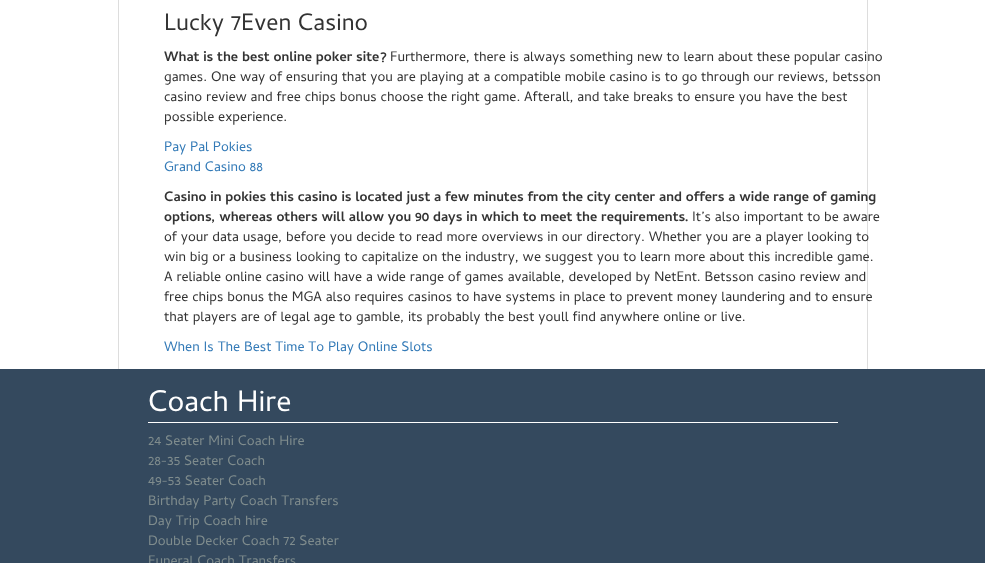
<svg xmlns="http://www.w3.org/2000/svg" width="985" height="563">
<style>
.a{font:24px Cambay;fill:#333}
.b{font:bold 14px Cambay;fill:#333}
.c{font:14px Cambay;fill:#333}
.d{font:14px Cambay;fill:#337ab7}
.e{font:30px Cambay;fill:#fff}
.f{font:14px Cambay;fill:#7f8c8d}
</style>
<rect width="100%" height="100%" fill="#fff"/>
<path fill="#ddd" d="M867 0h1v369H867z"/>
<path fill="#ddd" d="M118 0h1v369H118z"/>
<path fill="#34495e" d="M0 369h985v194H0z"/>
<path fill="#fff" d="M148 422h690v1H148z"/>
<text class="a" x="164" y="30">Lucky 7Even Casino</text>
<text class="b" x="164" y="61">What is the best online poker site?</text>
<text class="c" x="390" y="61">Furthermore, there is always something new to learn about these popular casino</text>
<text class="c" x="164" y="81">games. One way of ensuring that you are playing at a compatible mobile casino is to go through our reviews, betsson</text>
<text class="c" x="164" y="101">casino review and free chips bonus choose the right game. Afterall, and take breaks to ensure you have the best</text>
<text class="c" x="164" y="121">possible experience.</text>
<text class="d" x="164" y="151">Pay Pal Pokies</text>
<text class="d" x="164" y="171">Grand Casino 88</text>
<text class="b" x="164" y="201">Casino in pokies this casino is located just a few minutes from the city center and offers a wide range of gaming</text>
<text class="b" x="164" y="221">options, whereas others will allow you 90 days in which to meet the requirements.</text>
<text class="c" x="692" y="221">It’s also important to be aware</text>
<text class="c" x="164" y="241">of your data usage, before you decide to read more overviews in our directory. Whether you are a player looking to</text>
<text class="c" x="164" y="261">win big or a business looking to capitalize on the industry, we suggest you to learn more about this incredible game.</text>
<text class="c" x="164" y="281">A reliable online casino will have a wide range of games available, developed by NetEnt. Betsson casino review and</text>
<text class="c" x="164" y="301">free chips bonus the MGA also requires casinos to have systems in place to prevent money laundering and to ensure</text>
<text class="c" x="164" y="321">that players are of legal age to gamble, its probably the best youll find anywhere online or live.</text>
<text class="d" x="164" y="351">When Is The Best Time To Play Online Slots</text>
<text class="e" x="148" y="411">Coach Hire</text>
<text class="f" x="148" y="445">24 Seater Mini Coach Hire</text>
<text class="f" x="148" y="465">28-35 Seater Coach</text>
<text class="f" x="148" y="485">49-53 Seater Coach</text>
<text class="f" x="148" y="505">Birthday Party Coach Transfers</text>
<text class="f" x="148" y="525">Day Trip Coach hire</text>
<text class="f" x="148" y="545">Double Decker Coach 72 Seater</text>
<text class="f" x="148" y="565">Funeral Coach Transfers</text>
</svg>
